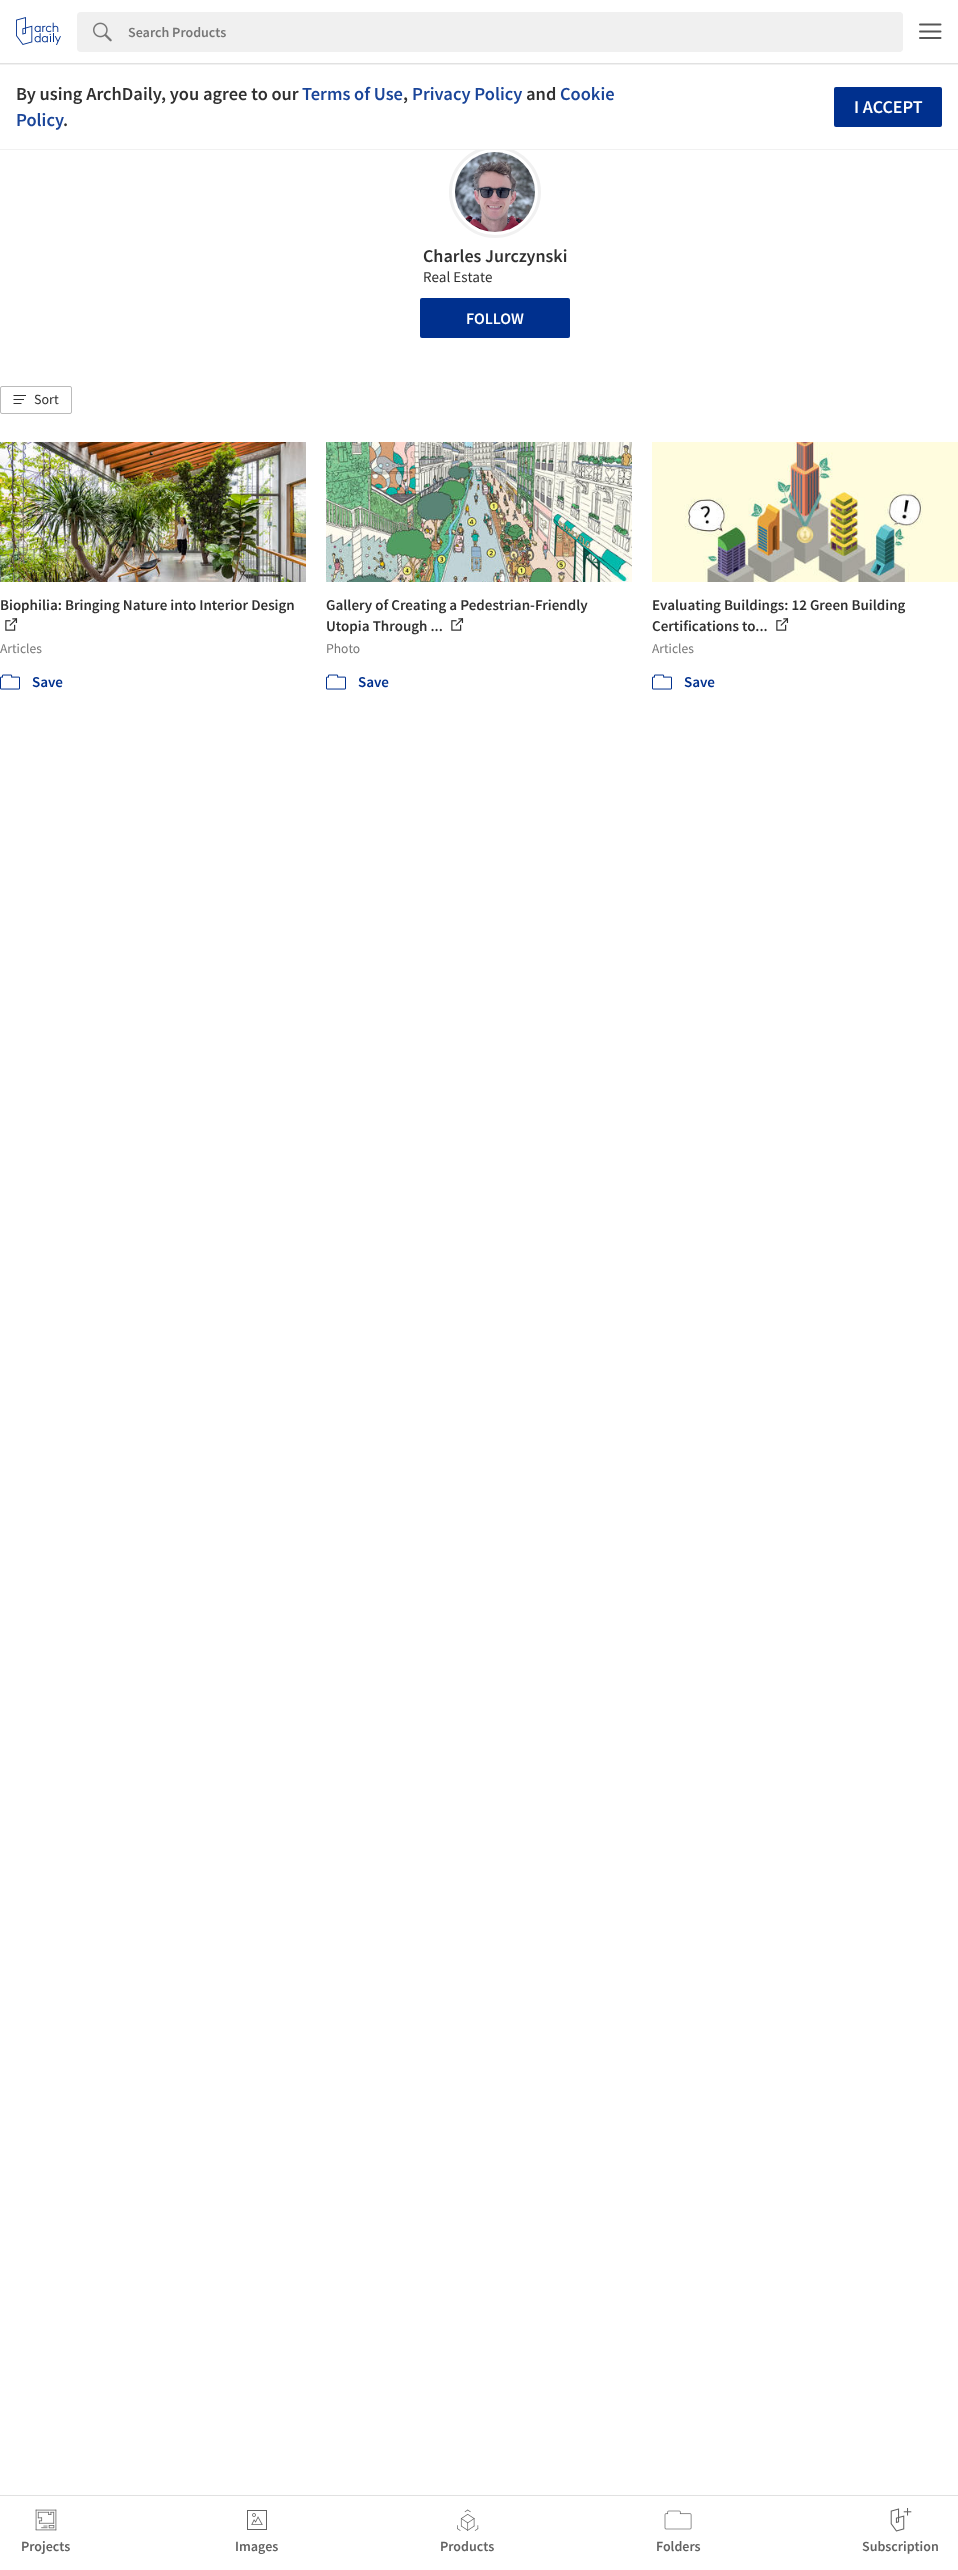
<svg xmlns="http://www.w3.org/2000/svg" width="958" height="2570">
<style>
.a{font:600 14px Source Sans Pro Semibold;fill:#767676}
.b{font:600 18.4px Source Sans Pro Semibold;fill:#303030}
.c{font:600 18.4px Source Sans Pro Semibold;fill:#1a4599}
.d{font:600 18px Source Sans Pro Semibold;fill:#fff}
.e{font:600 18px Source Sans Pro Semibold;fill:#303030}
.f{font:15px Source Sans Pro;fill:#303030}
.g{font:600 16px Source Sans Pro Semibold;fill:#fff}
.h{font:14px Source Sans Pro;fill:#303030}
.i{font:600 15px Source Sans Pro Semibold;fill:#303030}
.j{font:13.5px Source Sans Pro;fill:#767676}
.k{font:600 15px Source Sans Pro Semibold;fill:#00308e}
.l{font:600 14px Source Sans Pro Semibold;fill:#626262}
</style>
<rect width="100%" height="100%" fill="#fff"/>
<path fill="#e1e1e1" d="M0 63h958v1H0z"/>
<image href="1.png" x="16" y="17" width="45" height="28"/>
<rect fill="#f0f0f0" x="77" y="12" width="826" height="40" rx="4"/>
<image href="2.png" x="93" y="22" width="19" height="20"/>
<path fill="#f0f0f0" d="M128 12h771c2 0 4 2 4 4v32c0 2-2 4-4 4h-771z"/>
<path fill="none" stroke="#565656" stroke-width="2" stroke-linecap="round" d="M920 24.5h20.5m-20.5 7h20.5m-20.5 6.5h20.5"/>
<circle fill="none" stroke="#f1f1f1" stroke-width="6" cx="495" cy="192" r="43"/>
<path fill="#fff" d="M479 146h32v3H479z"/>
<path fill="#f1f1f1" d="M0 64h958v1H0z"/>
<circle fill="none" stroke="#fff" stroke-width="3" cx="495" cy="192" r="41.5"/>
<path fill="#f1f1f1" d="M0 149h958v1H0z"/>
<rect fill="#00308e" x="834" y="87" width="108" height="40" rx="2"/>
<image href="3.png" x="455" y="152" width="80" height="80"/>
<rect fill="#00308e" x="420" y="298" width="150" height="40" rx="2"/>
<rect fill="none" stroke="#bbb" x="0.5" y="386.5" width="71" height="27" rx="1.5"/>
<image href="4.png" x="13" y="395" width="13" height="9"/>
<image href="5.png" x="0" y="442" width="306" height="140"/>
<image href="6.png" x="5" y="618" width="13" height="13"/>
<image href="7.png" x="0" y="674" width="20" height="16"/>
<image href="8.png" x="326" y="442" width="306" height="140"/>
<image href="6.png" x="451" y="618" width="13" height="13"/>
<image href="7.png" x="326" y="674" width="20" height="16"/>
<image href="9.png" x="652" y="442" width="306" height="140"/>
<image href="6.png" x="776" y="618" width="13" height="13"/>
<image href="7.png" x="652" y="674" width="20" height="16"/>
<path fill="#e1e1e1" d="M0 2495h958v1H0z"/>
<image href="10.png" x="35" y="2509" width="22" height="22"/>
<image href="11.png" x="247" y="2510" width="20" height="20"/>
<image href="12.png" x="457" y="2509" width="22" height="22"/>
<image href="13.png" x="664" y="2510" width="28" height="20"/>
<image href="14.png" x="890" y="2508" width="22" height="24"/>
<text class="a" x="128" y="37">Search Products</text>
<text class="b" x="16" y="100">By using ArchDaily, you agree to our</text>
<text class="c" x="302" y="100">Terms of Use</text>
<text class="b" x="403" y="100">,</text>
<text class="c" x="412" y="100">Privacy Policy</text>
<text class="b" x="526" y="100">and</text>
<text class="c" x="560" y="100">Cookie</text>
<text class="c" x="16" y="126">Policy</text>
<text class="b" x="63" y="126">.</text>
<text class="d" x="854" y="113">I ACCEPT</text>
<text class="e" x="423" y="262">Charles Jurczynski</text>
<text class="f" x="423" y="282">Real Estate</text>
<text class="g" x="466" y="324">FOLLOW</text>
<text class="h" x="34" y="404">Sort</text>
<text class="i" x="0" y="610">Biophilia: Bringing Nature into Interior Design</text>
<text class="j" x="0" y="653">Articles</text>
<text class="k" x="32" y="687">Save</text>
<text class="i" x="326" y="610">Gallery of Creating a Pedestrian-Friendly</text>
<text class="i" x="326" y="631">Utopia Through ...</text>
<text class="j" x="326" y="653">Photo</text>
<text class="k" x="358" y="687">Save</text>
<text class="i" x="652" y="610">Evaluating Buildings: 12 Green Building</text>
<text class="i" x="652" y="631">Certifications to...</text>
<text class="j" x="652" y="653">Articles</text>
<text class="k" x="684" y="687">Save</text>
<text class="l" x="21" y="2551">Projects</text>
<text class="l" x="235" y="2551">Images</text>
<text class="l" x="440" y="2551">Products</text>
<text class="l" x="656" y="2551">Folders</text>
<text class="l" x="862" y="2551">Subscription</text>
</svg>
